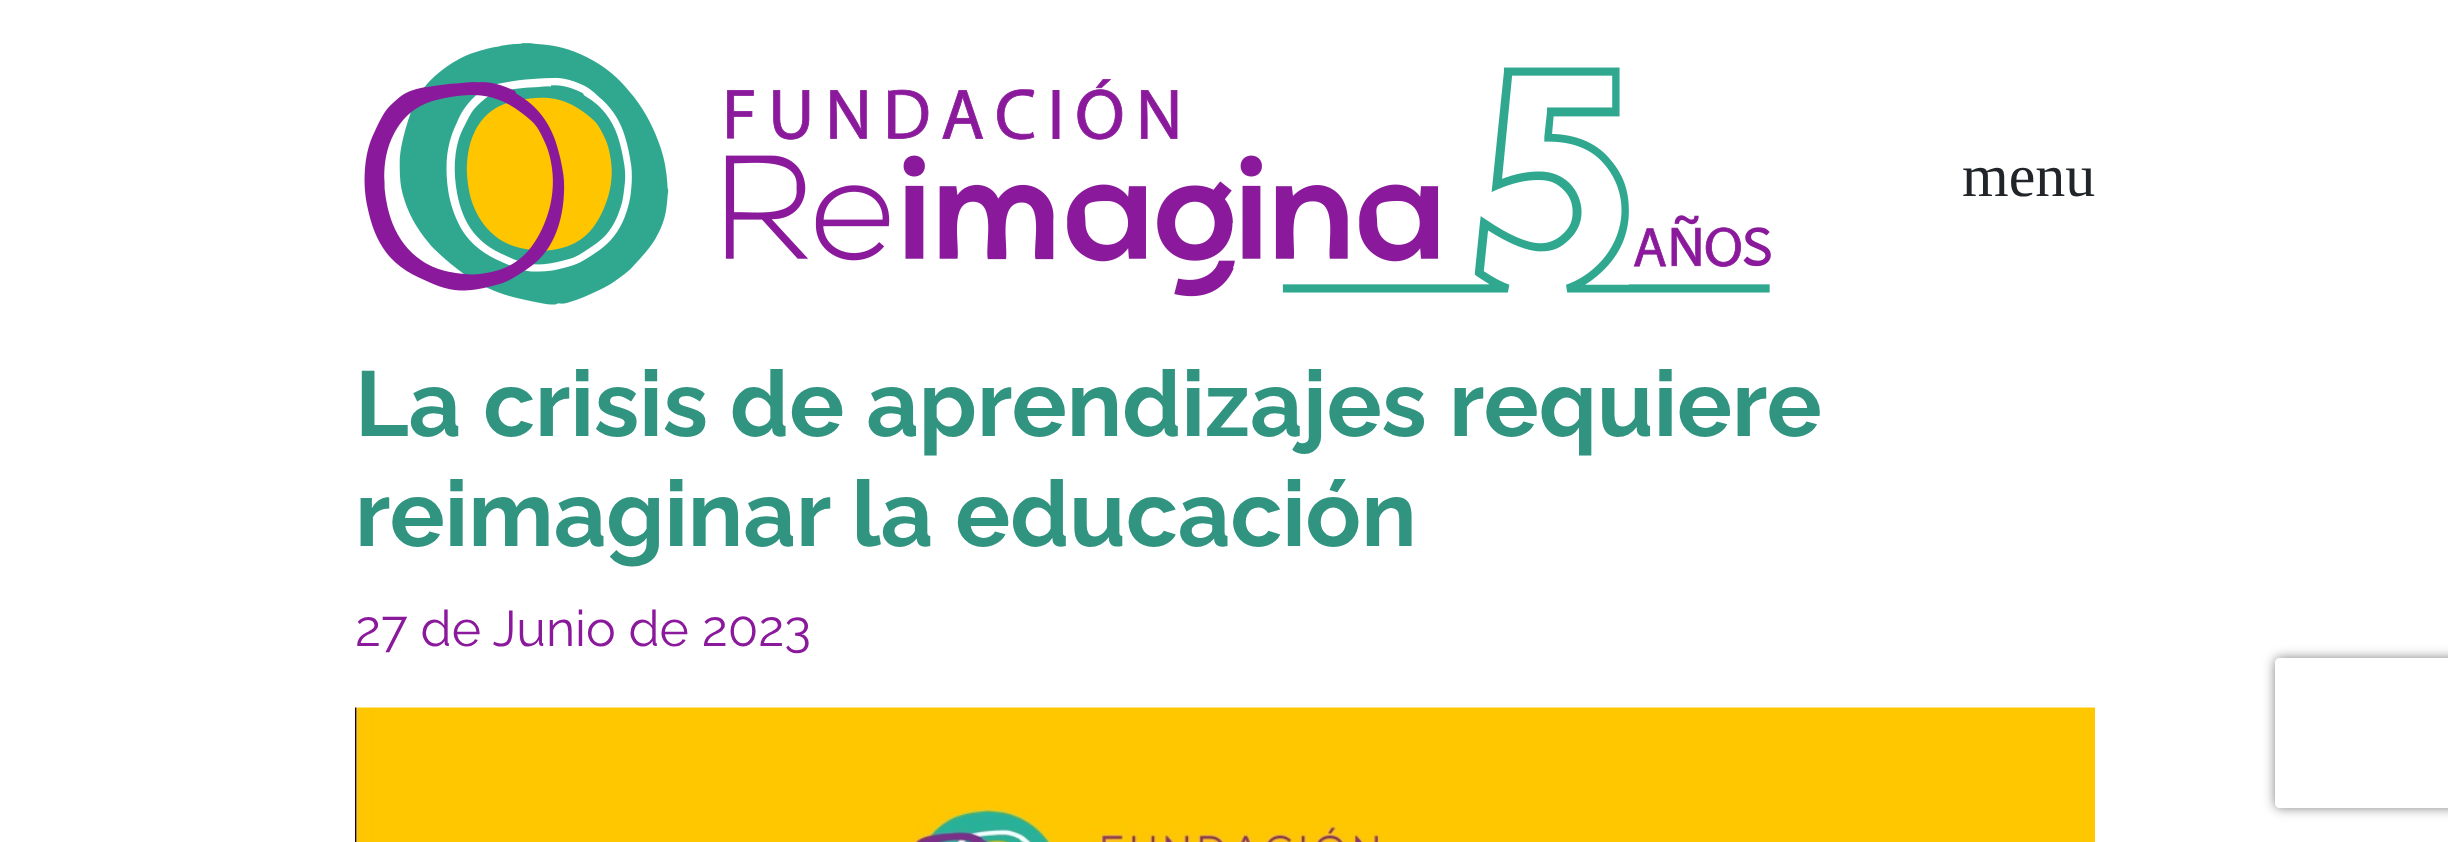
<svg xmlns="http://www.w3.org/2000/svg" width="2448" height="842">
<style>
.a{font:60px Liberation Serif;fill:#212529}
.b{font:bold 91.75px Raleway;fill:#319480}
.c{font:50px Raleway;fill:#8a1a9b}
</style>
<defs>
<clipPath id="clip1"><path d="M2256 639h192v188h-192zm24 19h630c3 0 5 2 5 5v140c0 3-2 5-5 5h-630c-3 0-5-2-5-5v-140c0-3 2-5 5-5z" clip-rule="evenodd"/></clipPath>
</defs>
<rect width="100%" height="100%" fill="#fff"/>
<image href="1.png" x="364" y="43" width="1407" height="262"/>
<image href="2.png" x="355" y="707" width="1740" height="135"/>
<g clip-path="url(#clip1)">
<rect fill="#808080" filter="blur(6px)" x="2275" y="658" width="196" height="150" rx="5"/>
</g>
<text class="a" x="1962" y="196">menu</text>
<text class="b" x="355" y="436">La crisis de aprendizajes requiere</text>
<text class="b" x="355" y="546">reimaginar la educación</text>
<text class="c" x="355" y="646">27 de Junio de 2023</text>
</svg>
